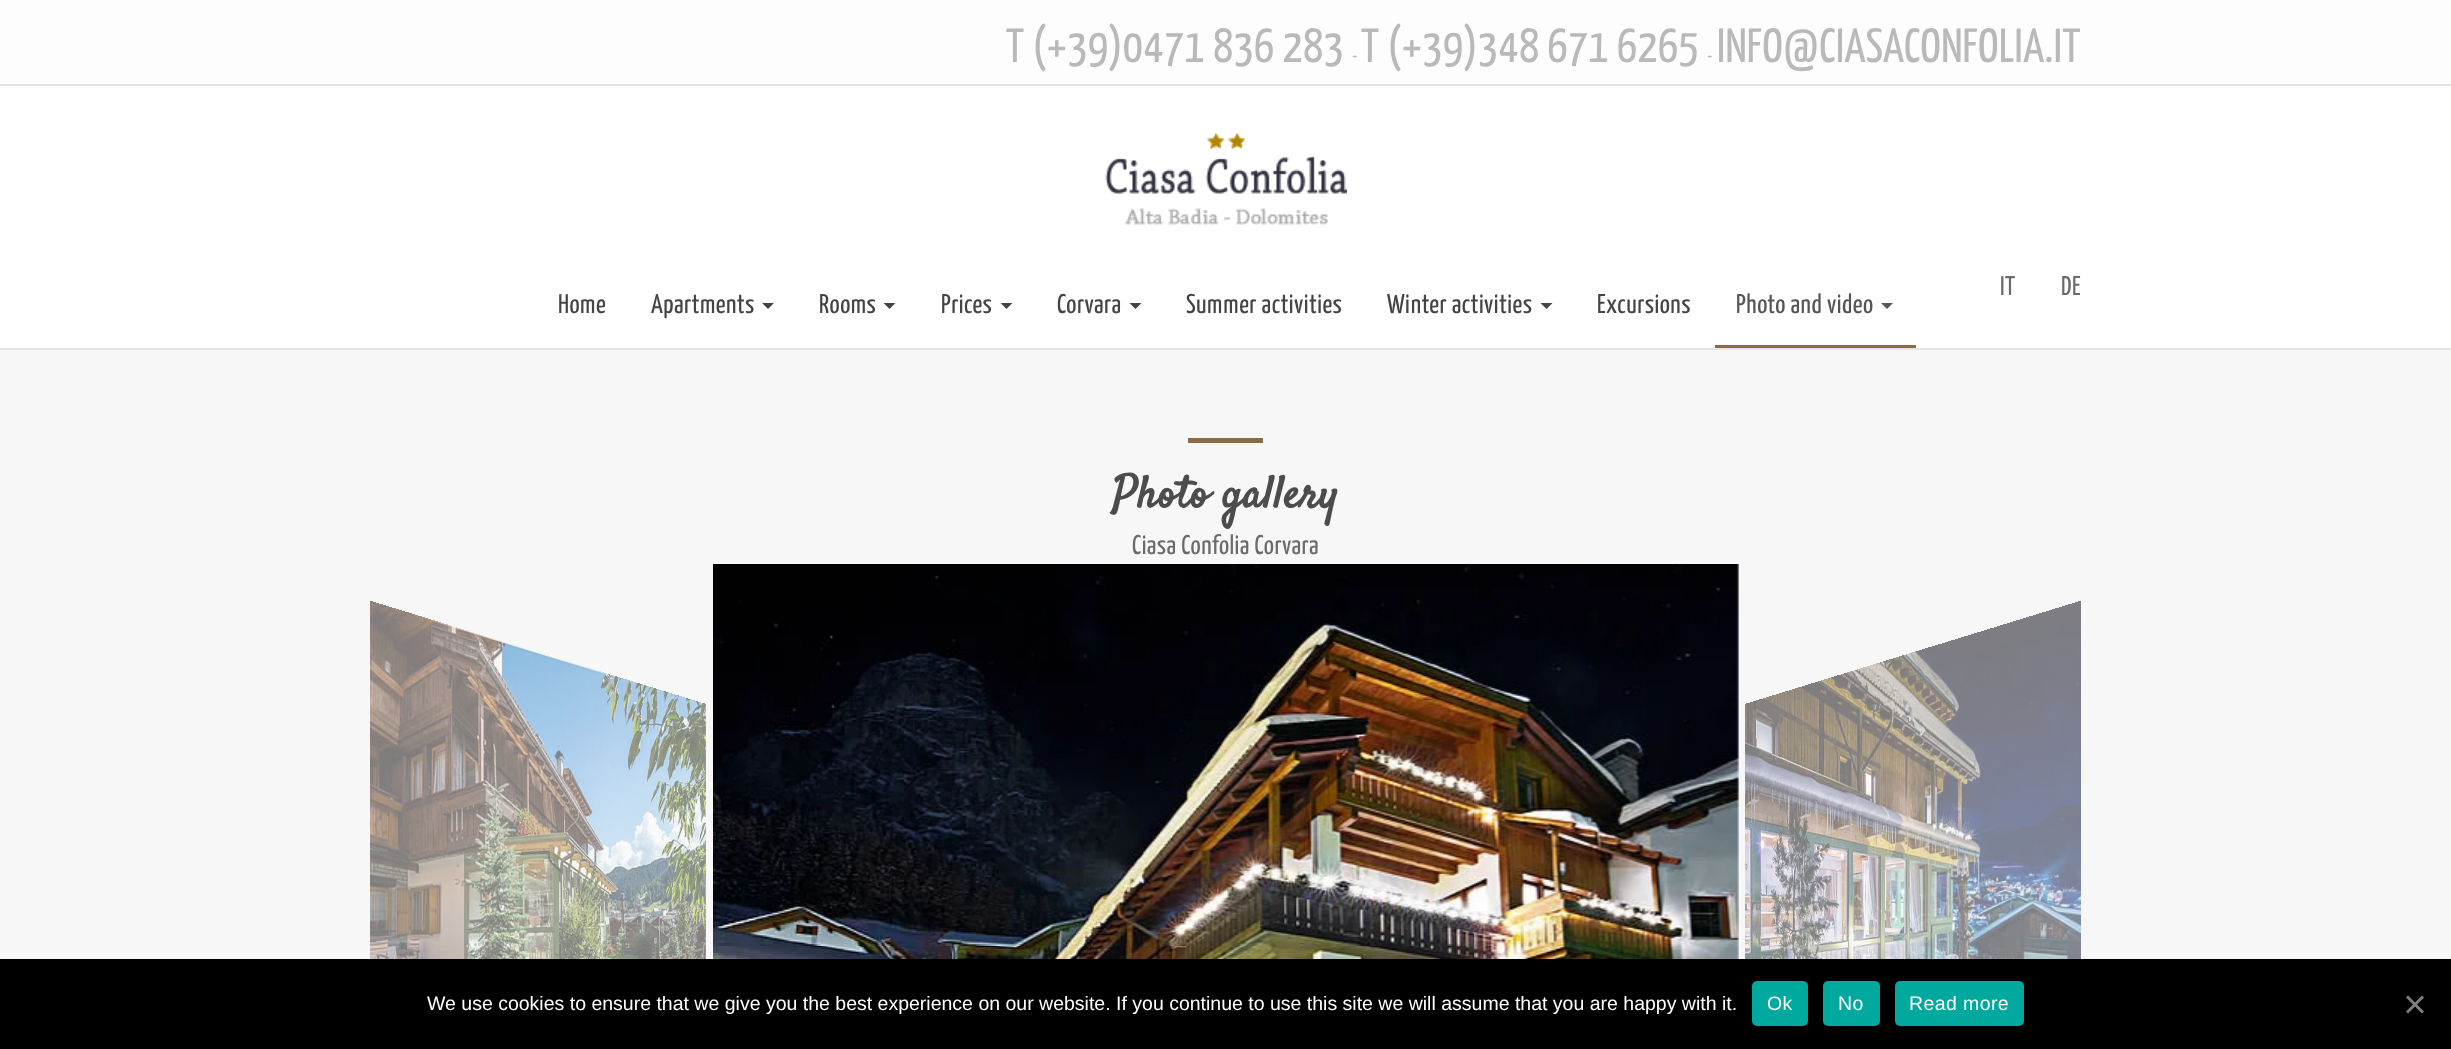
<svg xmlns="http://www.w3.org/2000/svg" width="2451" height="1049">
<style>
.a{font:48px Yanone Kaffeesatz;letter-spacing:0.45px;fill:#b9b9b9}
.b{font:19.5px Yanone Kaffeesatz;letter-spacing:0.45px;fill:#b9b9b9}
.c{font:27px Yanone Kaffeesatz;letter-spacing:0.45px;fill:#6b6b6b}
.d{font:27px Yanone Kaffeesatz;letter-spacing:0.45px;fill:#444}
.e{font:27px Yanone Kaffeesatz;letter-spacing:0.45px;fill:#555}
.f{font:bold 45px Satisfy;letter-spacing:0.45px;fill:#4c4c4c}
.g{font:19.5px Liberation Sans;fill:#fff}
.h{font:19.5px Liberation Sans;letter-spacing:0.4px;fill:#fff}
</style>
<rect width="100%" height="100%" fill="#f7f7f7"/>
<path fill="#fff" d="M0 86h2451v262H0z"/>
<path fill="#e4e4e4" d="M0 348h2451v2H0z"/>
<path fill="#fdfdfd" d="M0 0h2451v84H0z"/>
<path fill="#e4e4e4" d="M0 84h2451v2H0z"/>
<image href="1.png" x="1105" y="133" width="242" height="92"/>
<path fill="#444" d="M762 303h12l-6 6z"/>
<path fill="#444" d="M883.5 303h12l-6 6z"/>
<path fill="#444" d="M1000.5 303h12l-6 6z"/>
<path fill="#444" d="M1129.5 303h12l-6 6z"/>
<path fill="#444" d="M1540.5 303h12l-6 6z"/>
<path fill="#8b6b43" d="M1715 345h201v3H1715z"/>
<path fill="#555" d="M1881 303h12l-6 6z"/>
<path fill="#8b6b43" d="M1188 438h75v5H1188z"/>
<image href="2.png" x="370" y="601" width="336" height="358"/>
<image href="3.png" x="713" y="564" width="1026" height="395"/>
<image href="4.png" x="1745" y="601" width="336" height="358"/>
<path fill="#000" d="M0 959h2451v90H0z"/>
<rect fill="#00a99d" x="1752" y="981" width="56" height="45" rx="5"/>
<rect fill="#00a99d" x="1823" y="981" width="57" height="45" rx="5"/>
<rect fill="#00a99d" x="1895" y="981" width="129" height="45" rx="5"/>
<path fill="#808080" d="M2422 995.5l2 2l-16 16l-2-2z"/>
<path fill="#808080" d="M2406 997.5l2-2l16 16l-2 2z"/>
<text class="a" x="1006" y="62">T (+39)0471 836 283</text>
<text class="b" x="1352" y="62">-</text>
<text class="a" x="1361" y="62">T (+39)348 671 6265</text>
<text class="b" x="1707" y="62">-</text>
<text class="a" x="1717" y="62">INFO@CIASACONFOLIA.IT</text>
<text class="c" x="2000" y="295">IT</text>
<text class="c" x="2061" y="295">DE</text>
<text class="d" x="558" y="313">Home</text>
<text class="d" x="651" y="313">Apartments</text>
<text class="d" x="819" y="313">Rooms</text>
<text class="d" x="941" y="313">Prices</text>
<text class="d" x="1057" y="313">Corvara</text>
<text class="d" x="1186" y="313">Summer activities</text>
<text class="d" x="1387" y="313">Winter activities</text>
<text class="d" x="1597" y="313">Excursions</text>
<text class="e" x="1736" y="313">Photo and video</text>
<text class="f" x="1112" y="507">Photo gallery</text>
<text class="c" x="1132" y="554">Ciasa Confolia Corvara</text>
<text class="g" x="427" y="1010">We use cookies to ensure that we give you the best experience on our website. If you continue to use this site we will assume that you are happy with it.</text>
<text class="h" x="1767" y="1010">Ok</text>
<text class="h" x="1838" y="1010">No</text>
<text class="h" x="1909" y="1010">Read more</text>
</svg>
